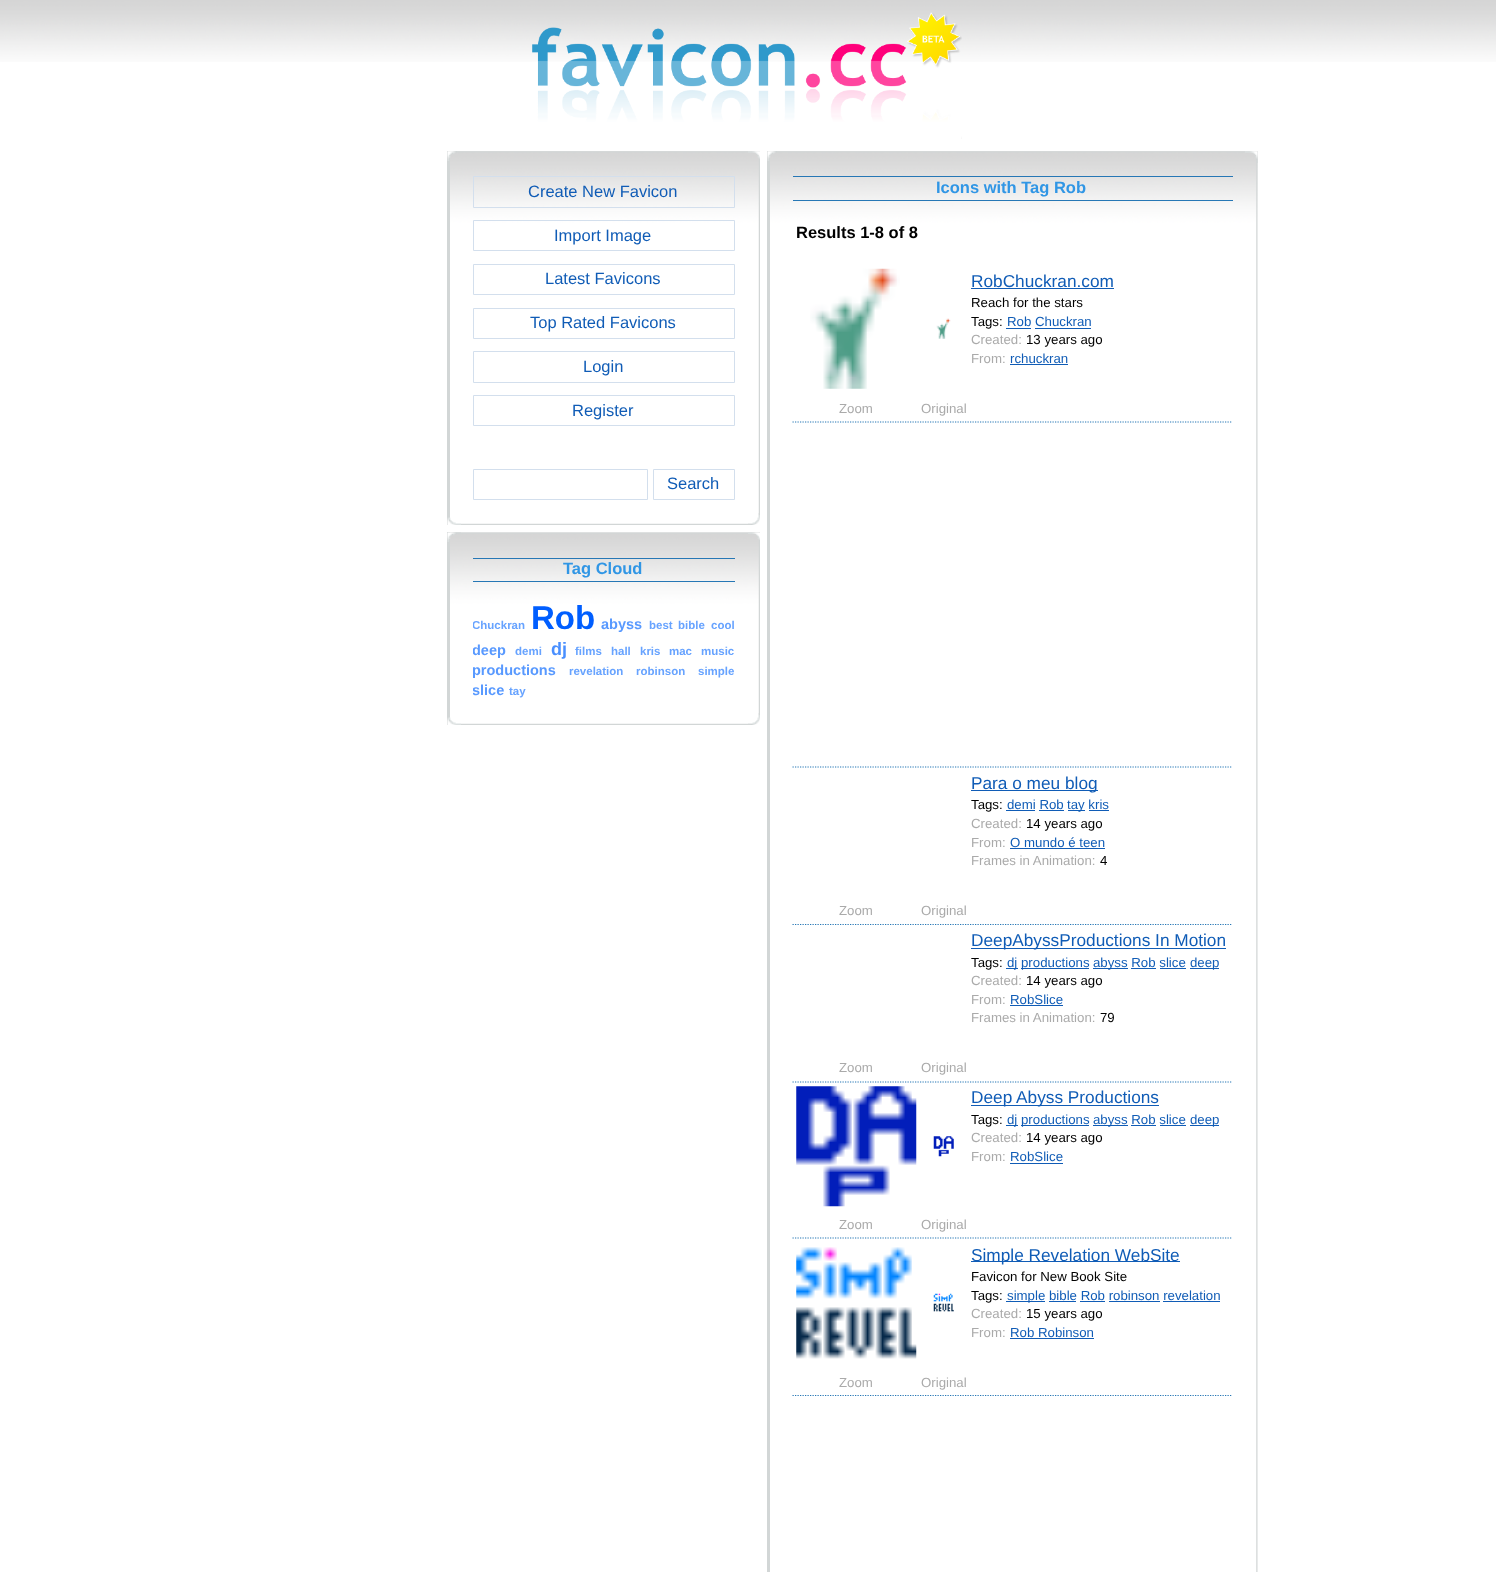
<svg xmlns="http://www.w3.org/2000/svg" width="1496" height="1572">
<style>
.a{font:16.5px Liberation Sans;fill:#105cb6}
.b{font:bold 16.5px Liberation Sans;fill:#3096e5}
.c{font:bold 11.5px Liberation Sans;fill:#67a3ff}
.d{font:bold 33px Liberation Sans;fill:#005eff}
.e{font:bold 14.5px Liberation Sans;fill:#5899ff}
.f{font:bold 18px Liberation Sans;fill:#498fff}
.g{font:bold 16.5px Liberation Sans;fill:#000}
.h{font:17.25px Liberation Sans;fill:#105cb6}
.i{font:13.25px Liberation Sans;fill:#000}
.j{font:13.25px Liberation Sans;fill:#105cb6}
.k{font:13.25px Liberation Sans;fill:#aaa}
</style>
<defs>
<clipPath id="clip1"><path d="M473 599h262v101H473z"/></clipPath>
</defs>
<rect width="100%" height="100%" fill="#fff"/>
<image href="1.png" x="0" y="0" width="1496" height="62"/>
<image href="2.png" x="532" y="12" width="430" height="127"/>
<image href="3.png" x="450" y="151" width="310" height="373"/>
<image href="4.png" x="450" y="151" width="310" height="2"/>
<image href="5.png" x="455" y="523" width="298" height="2"/>
<path fill="#d2d6d6" d="M447 151h3v374H447z"/>
<image href="6.png" x="758" y="157" width="2" height="361"/>
<image href="7.png" x="748" y="513" width="12" height="12"/>
<image href="8.png" x="447" y="151" width="10" height="10"/>
<image href="9.png" x="748" y="151" width="12" height="8"/>
<image href="10.png" x="447" y="517" width="14" height="8"/>
<path fill="none" stroke="#d3dfed" d="M473.5 176.5h261v31H473.5z"/>
<path fill="none" stroke="#d3dfed" d="M473.5 220.5h261v30H473.5z"/>
<path fill="none" stroke="#d3dfed" d="M473.5 264.5h261v30H473.5z"/>
<path fill="none" stroke="#d3dfed" d="M473.5 308.5h261v30H473.5z"/>
<path fill="none" stroke="#d3dfed" d="M473.5 351.5h261v31H473.5z"/>
<path fill="none" stroke="#d3dfed" d="M473.5 395.5h261v30H473.5z"/>
<path fill="none" stroke="#d3dfed" d="M473.5 469.5h174v30H473.5z"/>
<path fill="none" stroke="#d3dfed" d="M653.5 469.5h81v30H653.5z"/>
<image href="11.png" x="450" y="532" width="310" height="192"/>
<image href="12.png" x="450" y="532" width="310" height="2"/>
<image href="5.png" x="455" y="723" width="298" height="2"/>
<path fill="#d2d6d6" d="M447 532h3v193H447z"/>
<image href="13.png" x="758" y="532" width="2" height="186"/>
<image href="14.png" x="748" y="713" width="12" height="12"/>
<image href="15.png" x="447" y="532" width="14" height="10"/>
<image href="16.png" x="748" y="532" width="12" height="8"/>
<image href="17.png" x="447" y="717" width="14" height="8"/>
<path fill="#2677b5" d="M473 558h262v1H473z"/>
<path fill="#2677b5" d="M473 581h262v1H473z"/>
<image href="18.png" x="770" y="151" width="488" height="1421"/>
<image href="19.png" x="770" y="151" width="488" height="2"/>
<path fill="#d2d6d6" d="M767 151h3v1421H767z"/>
<image href="20.png" x="1256" y="151" width="2" height="1421"/>
<image href="21.png" x="767" y="151" width="10" height="10"/>
<image href="22.png" x="1245" y="151" width="13" height="12"/>
<path fill="#2677b5" d="M793 176h440v1H793z"/>
<path fill="#2677b5" d="M793 200h440v1H793z"/>
<path fill="none" stroke="#2677b5" stroke-width="1.2" stroke-dasharray="1.25 1.25" d="M792.5 422h440"/>
<image href="23.png" x="810" y="268" width="90" height="121"/>
<image href="24.png" x="936" y="318" width="15" height="21"/>
<path fill="#105cb6" d="M971 288h143v1H971z"/>
<path fill="#105cb6" d="M1006 328h25v1H1006z"/>
<path fill="#105cb6" d="M1035 328h56v1H1035z"/>
<path fill="#105cb6" d="M1010 364h58v1H1010z"/>
<path fill="none" stroke="#2677b5" stroke-width="1.2" stroke-dasharray="1.25 1.25" d="M792.5 767h440"/>
<path fill="none" stroke="#2677b5" stroke-width="1.2" stroke-dasharray="1.25 1.25" d="M792.5 924.5h440"/>
<path fill="#105cb6" d="M971 790h127v1H971z"/>
<path fill="#105cb6" d="M1006 810h29v1H1006z"/>
<path fill="#105cb6" d="M1068 810h17v1H1068z"/>
<path fill="#105cb6" d="M1039 810h25v1H1039z"/>
<path fill="#105cb6" d="M1089 810h20v1H1089z"/>
<path fill="#105cb6" d="M1010 848h95v1H1010z"/>
<path fill="none" stroke="#2677b5" stroke-width="1.2" stroke-dasharray="1.25 1.25" d="M792.5 1082h440"/>
<path fill="#105cb6" d="M971 948h255v1H971z"/>
<path fill="#105cb6" d="M1006 968h12v1H1006z"/>
<path fill="#105cb6" d="M1021 968h68v1H1021z"/>
<path fill="#105cb6" d="M1093 968h35v1H1093z"/>
<path fill="#105cb6" d="M1190 968h29v1H1190z"/>
<path fill="#105cb6" d="M1131 968h25v1H1131z"/>
<path fill="#105cb6" d="M1160 968h26v1H1160z"/>
<path fill="#105cb6" d="M1010 1005h53v1H1010z"/>
<path fill="none" stroke="#2677b5" stroke-width="1.2" stroke-dasharray="1.25 1.25" d="M792.5 1238h440"/>
<image href="25.png" x="796" y="1086" width="121" height="121"/>
<image href="26.png" x="933" y="1136" width="21" height="21"/>
<path fill="#105cb6" d="M971 1105h188v1H971z"/>
<path fill="#105cb6" d="M1006 1125h12v1H1006z"/>
<path fill="#105cb6" d="M1021 1125h68v1H1021z"/>
<path fill="#105cb6" d="M1093 1125h35v1H1093z"/>
<path fill="#105cb6" d="M1190 1125h29v1H1190z"/>
<path fill="#105cb6" d="M1131 1125h25v1H1131z"/>
<path fill="#105cb6" d="M1160 1125h26v1H1160z"/>
<path fill="#105cb6" d="M1010 1163h53v1H1010z"/>
<path fill="none" stroke="#2677b5" stroke-width="1.2" stroke-dasharray="1.25 1.25" d="M792.5 1395.5h440"/>
<image href="27.png" x="796" y="1247" width="121" height="112"/>
<image href="28.png" x="933" y="1293" width="21" height="19"/>
<path fill="#105cb6" d="M971 1261h209v1H971z"/>
<path fill="#105cb6" d="M1006 1301h39v1H1006z"/>
<path fill="#105cb6" d="M1049 1301h27v1H1049z"/>
<path fill="#105cb6" d="M1080 1301h25v1H1080z"/>
<path fill="#105cb6" d="M1109 1301h51v1H1109z"/>
<path fill="#105cb6" d="M1163 1301h57v1H1163z"/>
<path fill="#105cb6" d="M1010 1338h84v1H1010z"/>
<text class="a" x="528" y="197">Create New Favicon</text>
<text class="a" x="554" y="241">Import Image</text>
<text class="a" x="545" y="284">Latest Favicons</text>
<text class="a" x="530" y="328">Top Rated Favicons</text>
<text class="a" x="583" y="372">Login</text>
<text class="a" x="572" y="416">Register</text>
<text class="a" x="667" y="489">Search</text>
<text class="b" x="563" y="574">Tag Cloud</text>
<g clip-path="url(#clip1)">
<text class="c" x="472" y="629">Chuckran</text>
</g>
<text class="d" x="531" y="629">Rob</text>
<text class="e" x="601" y="629">abyss</text>
<text class="c" x="649" y="629">best</text>
<text class="c" x="678" y="629">bible</text>
<text class="c" x="711" y="629">cool</text>
<g clip-path="url(#clip1)">
<text class="e" x="472" y="655">deep</text>
</g>
<text class="c" x="515" y="655">demi</text>
<text class="f" x="551" y="655">dj</text>
<text class="c" x="575" y="655">films</text>
<text class="c" x="611" y="655">hall</text>
<text class="c" x="640" y="655">kris</text>
<text class="c" x="669" y="655">mac</text>
<text class="c" x="701" y="655">music</text>
<g clip-path="url(#clip1)">
<text class="e" x="472" y="675">productions</text>
</g>
<text class="c" x="569" y="675">revelation</text>
<text class="c" x="636" y="675">robinson</text>
<text class="c" x="698" y="675">simple</text>
<g clip-path="url(#clip1)">
<text class="e" x="472" y="695">slice</text>
</g>
<text class="c" x="509" y="695">tay</text>
<text class="b" x="936" y="193">Icons with Tag Rob</text>
<text class="g" x="796" y="238">Results 1-8 of 8</text>
<text class="h" x="971" y="287">RobChuckran.com</text>
<text class="i" x="971" y="307">Reach for the stars</text>
<text class="i" x="971" y="326">Tags:</text>
<text class="j" x="1007" y="326">Rob Chuckran</text>
<text class="k" x="971" y="344">Created:</text>
<text class="i" x="1026" y="344">13 years ago</text>
<text class="k" x="971" y="363">From:</text>
<text class="j" x="1010" y="363">rchuckran</text>
<text class="k" x="839" y="413">Zoom</text>
<text class="k" x="921" y="413">Original</text>
<text class="h" x="971" y="789">Para o meu blog</text>
<text class="i" x="971" y="809">Tags:</text>
<text class="j" x="1007" y="809">demi Rob</text>
<text class="j" x="1067" y="809">tay kris</text>
<text class="k" x="971" y="828">Created:</text>
<text class="i" x="1026" y="828">14 years ago</text>
<text class="k" x="971" y="847">From:</text>
<text class="j" x="1010" y="847">O mundo é teen</text>
<text class="k" x="971" y="865">Frames in Animation:</text>
<text class="i" x="1100" y="865">4</text>
<text class="k" x="839" y="915">Zoom</text>
<text class="k" x="921" y="915">Original</text>
<text class="h" x="971" y="946">DeepAbyssProductions In Motion</text>
<text class="i" x="971" y="967">Tags:</text>
<text class="j" x="1007" y="967">dj</text>
<text class="j" x="1021" y="967">productions</text>
<text class="j" x="1093" y="967">abyss Rob slice</text>
<text class="j" x="1190" y="967">deep</text>
<text class="k" x="971" y="985">Created:</text>
<text class="i" x="1026" y="985">14 years ago</text>
<text class="k" x="971" y="1004">From:</text>
<text class="j" x="1010" y="1004">RobSlice</text>
<text class="k" x="971" y="1022">Frames in Animation:</text>
<text class="i" x="1100" y="1022">79</text>
<text class="k" x="839" y="1072">Zoom</text>
<text class="k" x="921" y="1072">Original</text>
<text class="h" x="971" y="1103">Deep Abyss Productions</text>
<text class="i" x="971" y="1124">Tags:</text>
<text class="j" x="1007" y="1124">dj</text>
<text class="j" x="1021" y="1124">productions</text>
<text class="j" x="1093" y="1124">abyss Rob slice</text>
<text class="j" x="1190" y="1124">deep</text>
<text class="k" x="971" y="1142">Created:</text>
<text class="i" x="1026" y="1142">14 years ago</text>
<text class="k" x="971" y="1161">From:</text>
<text class="j" x="1010" y="1161">RobSlice</text>
<text class="k" x="839" y="1229">Zoom</text>
<text class="k" x="921" y="1229">Original</text>
<text class="h" x="971" y="1261">Simple Revelation WebSite</text>
<text class="i" x="971" y="1281">Favicon for New Book Site</text>
<text class="i" x="971" y="1300">Tags:</text>
<text class="j" x="1007" y="1300">simple bible Rob robinson revelation</text>
<text class="k" x="971" y="1318">Created:</text>
<text class="i" x="1026" y="1318">15 years ago</text>
<text class="k" x="971" y="1337">From:</text>
<text class="j" x="1010" y="1337">Rob Robinson</text>
<text class="k" x="839" y="1387">Zoom</text>
<text class="k" x="921" y="1387">Original</text>
</svg>
